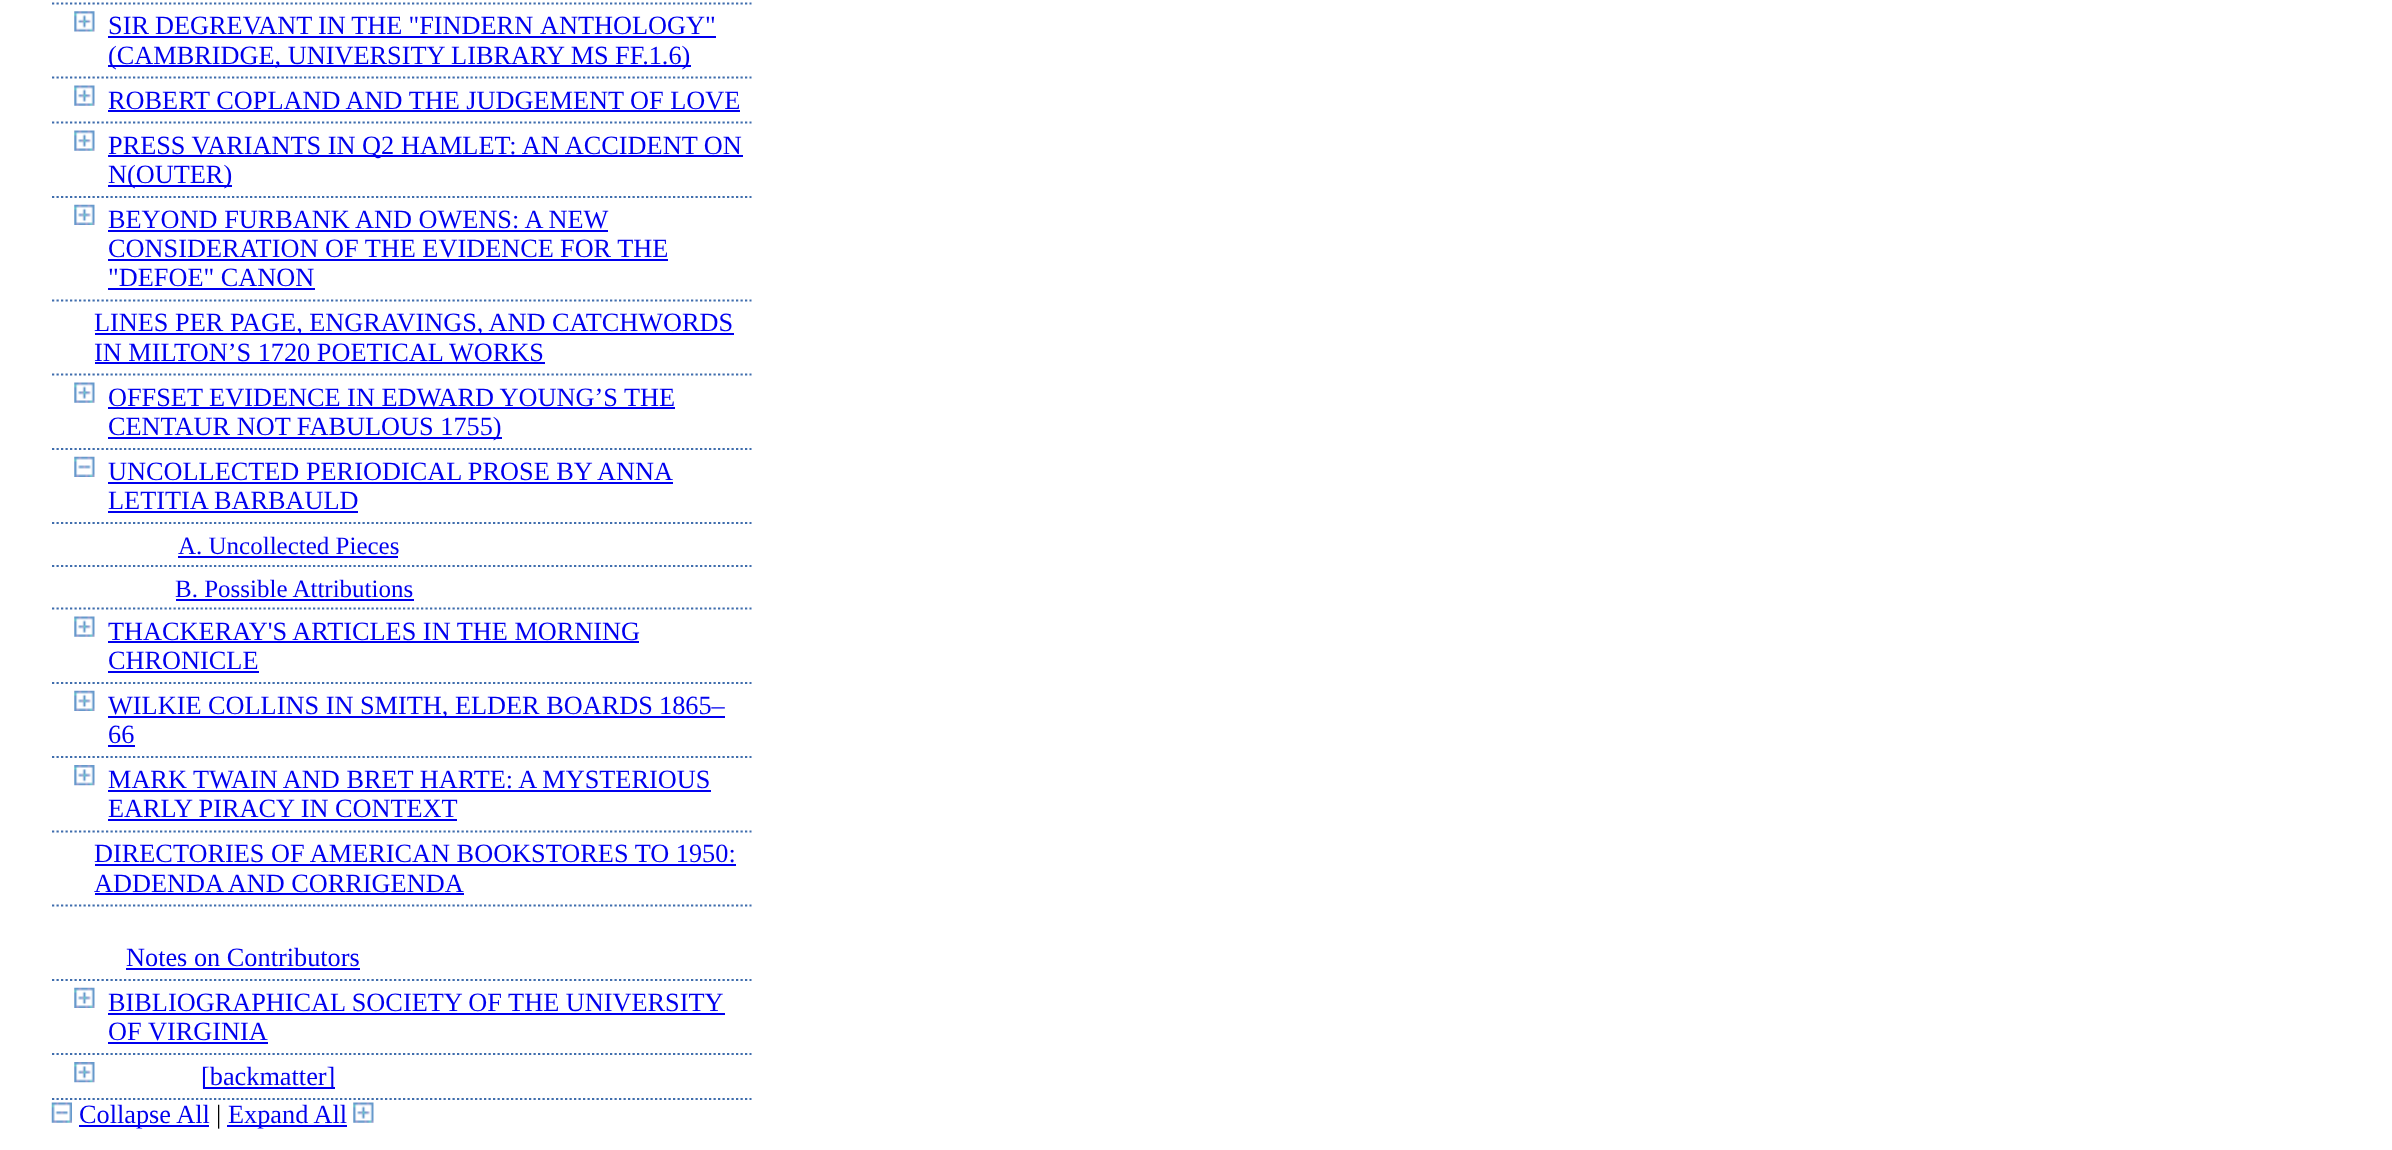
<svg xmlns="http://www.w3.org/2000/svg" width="2392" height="1150">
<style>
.a{font:26.3px Liberation Serif;fill:#00e}
.b{font:25px Liberation Serif;fill:#00e}
.c{font:26.3px Liberation Serif;fill:#000}
</style>
<rect width="100%" height="100%" fill="#fff"/>
<path fill="none" stroke="#3f6dad" stroke-width="2.2" stroke-dasharray="2.25 2.25" d="M52 3.5h699.5"/>
<path fill="none" stroke="#3f6dad" stroke-width="2.2" stroke-dasharray="2.25 2.25" d="M52 77.5h699.5"/>
<image href="1.png" x="74" y="11" width="21" height="21"/>
<path fill="#00e" d="M108 36h608v2H108z"/>
<path fill="#00e" d="M108 65h583v2H108z"/>
<path fill="none" stroke="#3f6dad" stroke-width="2.2" stroke-dasharray="2.25 2.25" d="M52 122.5h699.5"/>
<image href="2.png" x="74" y="85" width="21" height="21"/>
<path fill="#00e" d="M108 110h632v2H108z"/>
<path fill="none" stroke="#3f6dad" stroke-width="2.2" stroke-dasharray="2.25 2.25" d="M52 197h699.5"/>
<image href="2.png" x="74" y="130" width="21" height="21"/>
<path fill="#00e" d="M108 155h635v2H108z"/>
<path fill="#00e" d="M108 185h124v2H108z"/>
<path fill="none" stroke="#3f6dad" stroke-width="2.2" stroke-dasharray="2.25 2.25" d="M52 300.5h699.5"/>
<image href="3.png" x="74" y="204" width="21" height="21"/>
<path fill="#00e" d="M108 230h500v2H108z"/>
<path fill="#00e" d="M108 259h560v2H108z"/>
<path fill="#00e" d="M108 288h207v2H108z"/>
<path fill="none" stroke="#3f6dad" stroke-width="2.2" stroke-dasharray="2.25 2.25" d="M52 374.5h699.5"/>
<path fill="#00e" d="M95 333h639v2H95z"/>
<path fill="#00e" d="M95 362h450v2H95z"/>
<path fill="none" stroke="#3f6dad" stroke-width="2.2" stroke-dasharray="2.25 2.25" d="M52 449h699.5"/>
<image href="2.png" x="74" y="382" width="21" height="21"/>
<path fill="#00e" d="M108 407h567v2H108z"/>
<path fill="#00e" d="M108 437h394v2H108z"/>
<path fill="none" stroke="#3f6dad" stroke-width="2.2" stroke-dasharray="2.25 2.25" d="M52 523h699.5"/>
<image href="4.png" x="74" y="456" width="21" height="21"/>
<path fill="#00e" d="M108 482h565v2H108z"/>
<path fill="#00e" d="M108 511h250v2H108z"/>
<path fill="none" stroke="#3f6dad" stroke-width="2.2" stroke-dasharray="2.25 2.25" d="M52 566h699.5"/>
<path fill="#00e" d="M178 556h220v2H178z"/>
<path fill="none" stroke="#3f6dad" stroke-width="2.2" stroke-dasharray="2.25 2.25" d="M52 608.5h699.5"/>
<path fill="#00e" d="M176 599h238v2H176z"/>
<path fill="none" stroke="#3f6dad" stroke-width="2.2" stroke-dasharray="2.25 2.25" d="M52 683h699.5"/>
<image href="2.png" x="74" y="616" width="21" height="21"/>
<path fill="#00e" d="M108 641h531v2H108z"/>
<path fill="#00e" d="M108 671h151v2H108z"/>
<path fill="none" stroke="#3f6dad" stroke-width="2.2" stroke-dasharray="2.25 2.25" d="M52 757h699.5"/>
<image href="3.png" x="74" y="690" width="21" height="21"/>
<path fill="#00e" d="M108 716h617v2H108z"/>
<path fill="#00e" d="M108 745h27v2H108z"/>
<path fill="none" stroke="#3f6dad" stroke-width="2.2" stroke-dasharray="2.25 2.25" d="M52 831.5h699.5"/>
<image href="5.png" x="74" y="765" width="21" height="21"/>
<path fill="#00e" d="M108 790h603v2H108z"/>
<path fill="#00e" d="M108 819h349v2H108z"/>
<path fill="none" stroke="#3f6dad" stroke-width="2.2" stroke-dasharray="2.25 2.25" d="M52 905.5h699.5"/>
<path fill="#00e" d="M95 864h641v2H95z"/>
<path fill="#00e" d="M95 893h369v2H95z"/>
<path fill="none" stroke="#3f6dad" stroke-width="2.2" stroke-dasharray="2.25 2.25" d="M52 980h699.5"/>
<path fill="#00e" d="M126 968h234v2H126z"/>
<path fill="none" stroke="#3f6dad" stroke-width="2.2" stroke-dasharray="2.25 2.25" d="M52 1054h699.5"/>
<image href="3.png" x="74" y="987" width="21" height="21"/>
<path fill="#00e" d="M108 1013h617v2H108z"/>
<path fill="#00e" d="M108 1042h160v2H108z"/>
<path fill="none" stroke="#3f6dad" stroke-width="2.2" stroke-dasharray="2.25 2.25" d="M52 1099h699.5"/>
<image href="5.png" x="74" y="1062" width="21" height="21"/>
<path fill="#00e" d="M203 1087h132v2H203z"/>
<image href="6.png" x="51" y="1102" width="21" height="21"/>
<path fill="#00e" d="M79 1125h130v2H79z"/>
<path fill="#00e" d="M227 1125h120v2H227z"/>
<image href="2.png" x="353" y="1102" width="21" height="21"/>
<text class="a" x="108" y="34" word-spacing="-0.5">SIR DEGREVANT IN THE "FINDERN</text>
<text class="a" x="540" y="34">ANTHOLOGY"</text>
<text class="a" x="108" y="64">(CAMBRIDGE, UNIVERSITY LIBRARY MS</text>
<text class="a" x="615" y="64">FF.1.6)</text>
<text class="a" x="108" y="109">ROBERT COPLAND AND THE JUDGEMENT</text>
<text class="a" x="630" y="109">OF LOVE</text>
<text class="a" x="108" y="154">PRESS VARIANTS IN Q2</text>
<text class="a" x="401" y="154">HAMLET: AN ACCIDENT ON</text>
<text class="a" x="108" y="183">N(OUTER)</text>
<text class="a" x="108" y="228">BEYOND FURBANK AND OWENS: A NEW</text>
<text class="a" x="108" y="257">CONSIDERATION OF THE EVIDENCE</text>
<text class="a" x="560" y="257">FOR THE</text>
<text class="a" x="108" y="286">"DEFOE" CANON</text>
<text class="a" x="94" y="331">LINES PER PAGE, ENGRAVINGS, AND CATCHWORDS</text>
<text class="a" x="94" y="361">IN MILTON’S 1720 POETICAL WORKS</text>
<text class="a" x="108" y="406">OFFSET EVIDENCE IN EDWARD YOUNG’S THE</text>
<text class="a" x="108" y="435">CENTAUR NOT FABULOUS 1755)</text>
<text class="a" x="108" y="480">UNCOLLECTED PERIODICAL PROSE BY ANNA</text>
<text class="a" x="108" y="509">LETITIA BARBAULD</text>
<text class="b" x="178" y="554">A. Uncollected Pieces</text>
<text class="b" x="175" y="597">B. Possible Attributions</text>
<text class="a" x="108" y="640">THACKERAY'S ARTICLES IN THE MORNING</text>
<text class="a" x="108" y="669">CHRONICLE</text>
<text class="a" x="108" y="714">WILKIE COLLINS IN SMITH, ELDER BOARDS</text>
<text class="a" x="659" y="714">1865–</text>
<text class="a" x="108" y="743">66</text>
<text class="a" x="108" y="788">MARK TWAIN AND BRET HARTE: A MYSTERIOUS</text>
<text class="a" x="108" y="817">EARLY PIRACY IN CONTEXT</text>
<text class="a" x="94" y="862">DIRECTORIES OF AMERICAN BOOKSTORES TO 1950:</text>
<text class="a" x="94" y="892">ADDENDA AND CORRIGENDA</text>
<text class="a" x="126" y="966">Notes on Contributors</text>
<text class="a" x="108" y="1011">BIBLIOGRAPHICAL SOCIETY OF THE UNIVERSITY</text>
<text class="a" x="108" y="1040">OF</text>
<text class="a" x="148" y="1040">VIRGINIA</text>
<text class="a" x="201" y="1085">[backmatter]</text>
<text class="a" x="79" y="1123">Collapse All</text>
<text class="c" x="216" y="1123">|</text>
<text class="a" x="228" y="1123">Expand All</text>
</svg>
